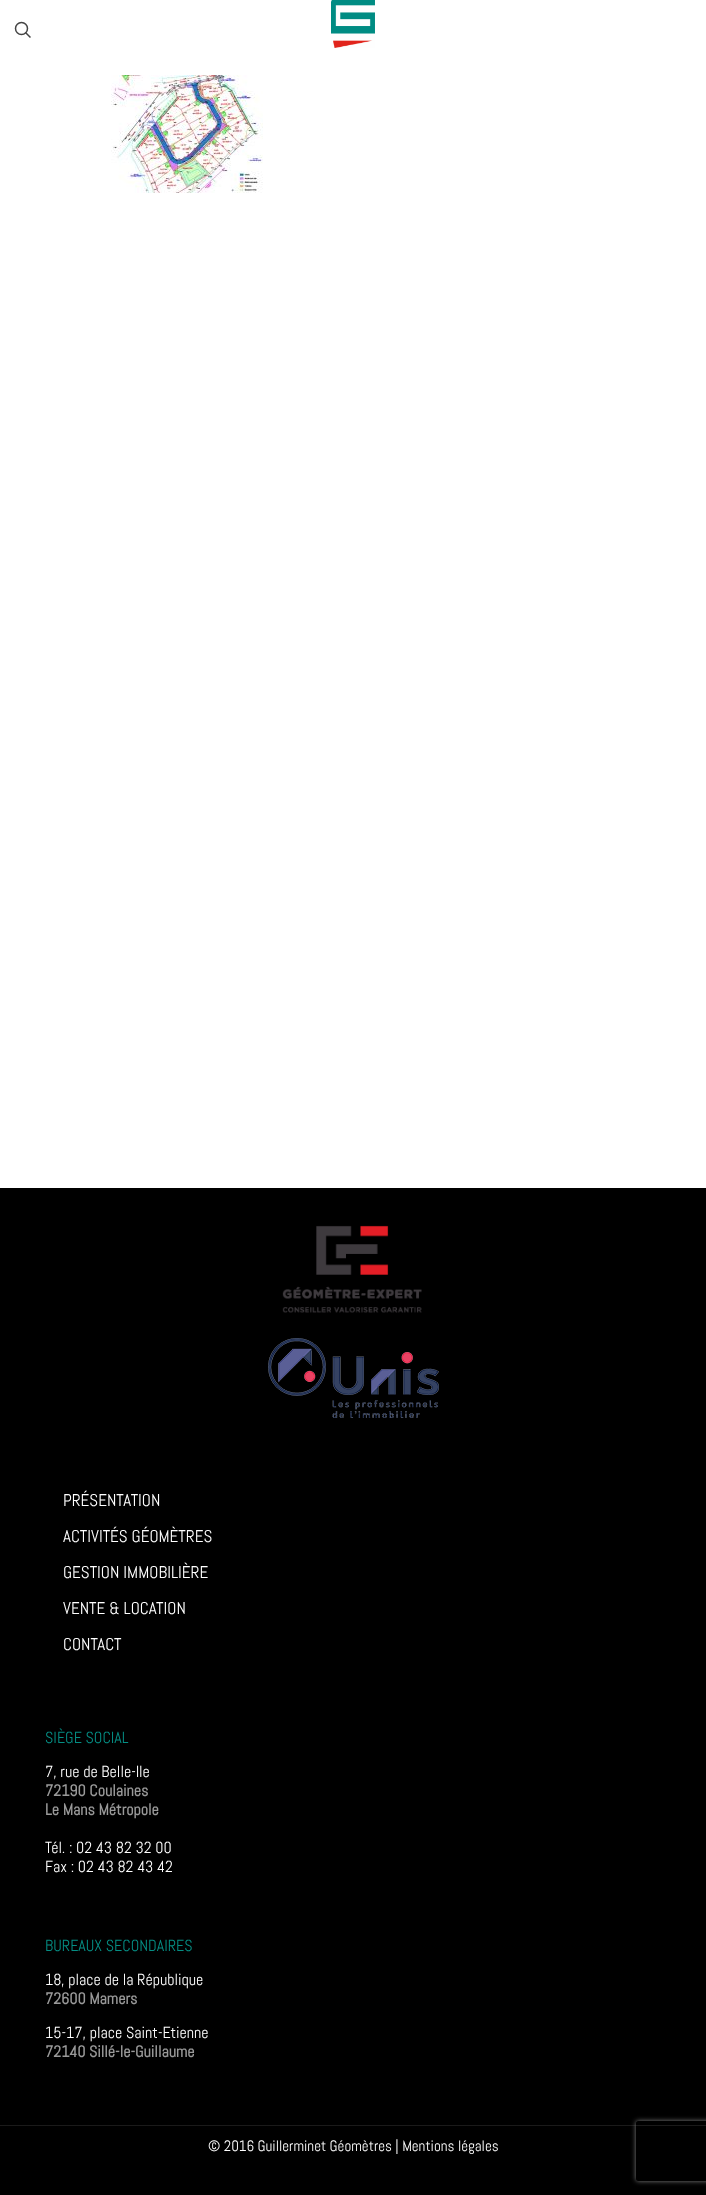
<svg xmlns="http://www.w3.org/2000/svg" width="706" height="2195">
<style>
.a{font:17px Abel;fill:#fff}
.b{font:16px Abel;fill:#058e84}
.c{font:16px Abel;fill:#fff}
.d{font:bold 16px Abel;fill:#999}
.e{font:15px Abel;fill:#fff}
</style>
<defs>
<clipPath id="clip1"><path d="M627 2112h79v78h-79zm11 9h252c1 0 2 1 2 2v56c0 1-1 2-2 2h-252c-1 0-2-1-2-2v-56c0-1 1-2 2-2z" clip-rule="evenodd"/></clipPath>
</defs>
<rect width="100%" height="100%" fill="#fff"/>
<circle fill="none" stroke="#444" stroke-width="1.5" cx="21.5" cy="28.5" r="6"/>
<path fill="none" stroke="#444" stroke-width="1.5" d="M25.5 32.5l5 5"/>
<image href="1.png" x="331" y="0" width="44" height="48"/>
<image href="2.png" x="111" y="75" width="152" height="118"/>
<path fill="#000" d="M0 1188h706v1007H0z"/>
<image href="3.png" x="282" y="1225" width="140" height="88"/>
<image href="4.png" x="268" y="1338" width="171" height="80"/>
<path fill="#1a1a1a" d="M0 2125h706v1H0z"/>
<g clip-path="url(#clip1)">
<rect fill="#808080" filter="blur(2.5px)" x="636" y="2121" width="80" height="60" rx="2"/>
</g>
<text class="a" x="63" y="1506">PRÉSENTATION</text>
<text class="a" x="63" y="1542">ACTIVITÉS GÉOMÈTRES</text>
<text class="a" x="63" y="1578">GESTION IMMOBILIÈRE</text>
<text class="a" x="63" y="1614">VENTE &amp; LOCATION</text>
<text class="a" x="63" y="1650">CONTACT</text>
<text class="b" x="45" y="1743">SIÈGE SOCIAL</text>
<text class="c" x="45" y="1777">7, rue de Belle-Ile</text>
<text class="d" x="45" y="1796">72190 Coulaines</text>
<text class="d" x="45" y="1815">Le Mans Métropole</text>
<text class="c" x="45" y="1853">Tél. : 02 43 82 32 00</text>
<text class="c" x="45" y="1872">Fax : 02 43 82 43 42</text>
<text class="b" x="45" y="1951">BUREAUX SECONDAIRES</text>
<text class="c" x="45" y="1985">18, place de la République</text>
<text class="d" x="45" y="2004">72600 Mamers</text>
<text class="c" x="45" y="2038">15-17, place Saint-Etienne</text>
<text class="d" x="45" y="2057">72140 Sillé-le-Guillaume</text>
<text class="e" x="208" y="2151">© 2016 Guillerminet Géomètres | Mentions légales</text>
</svg>
